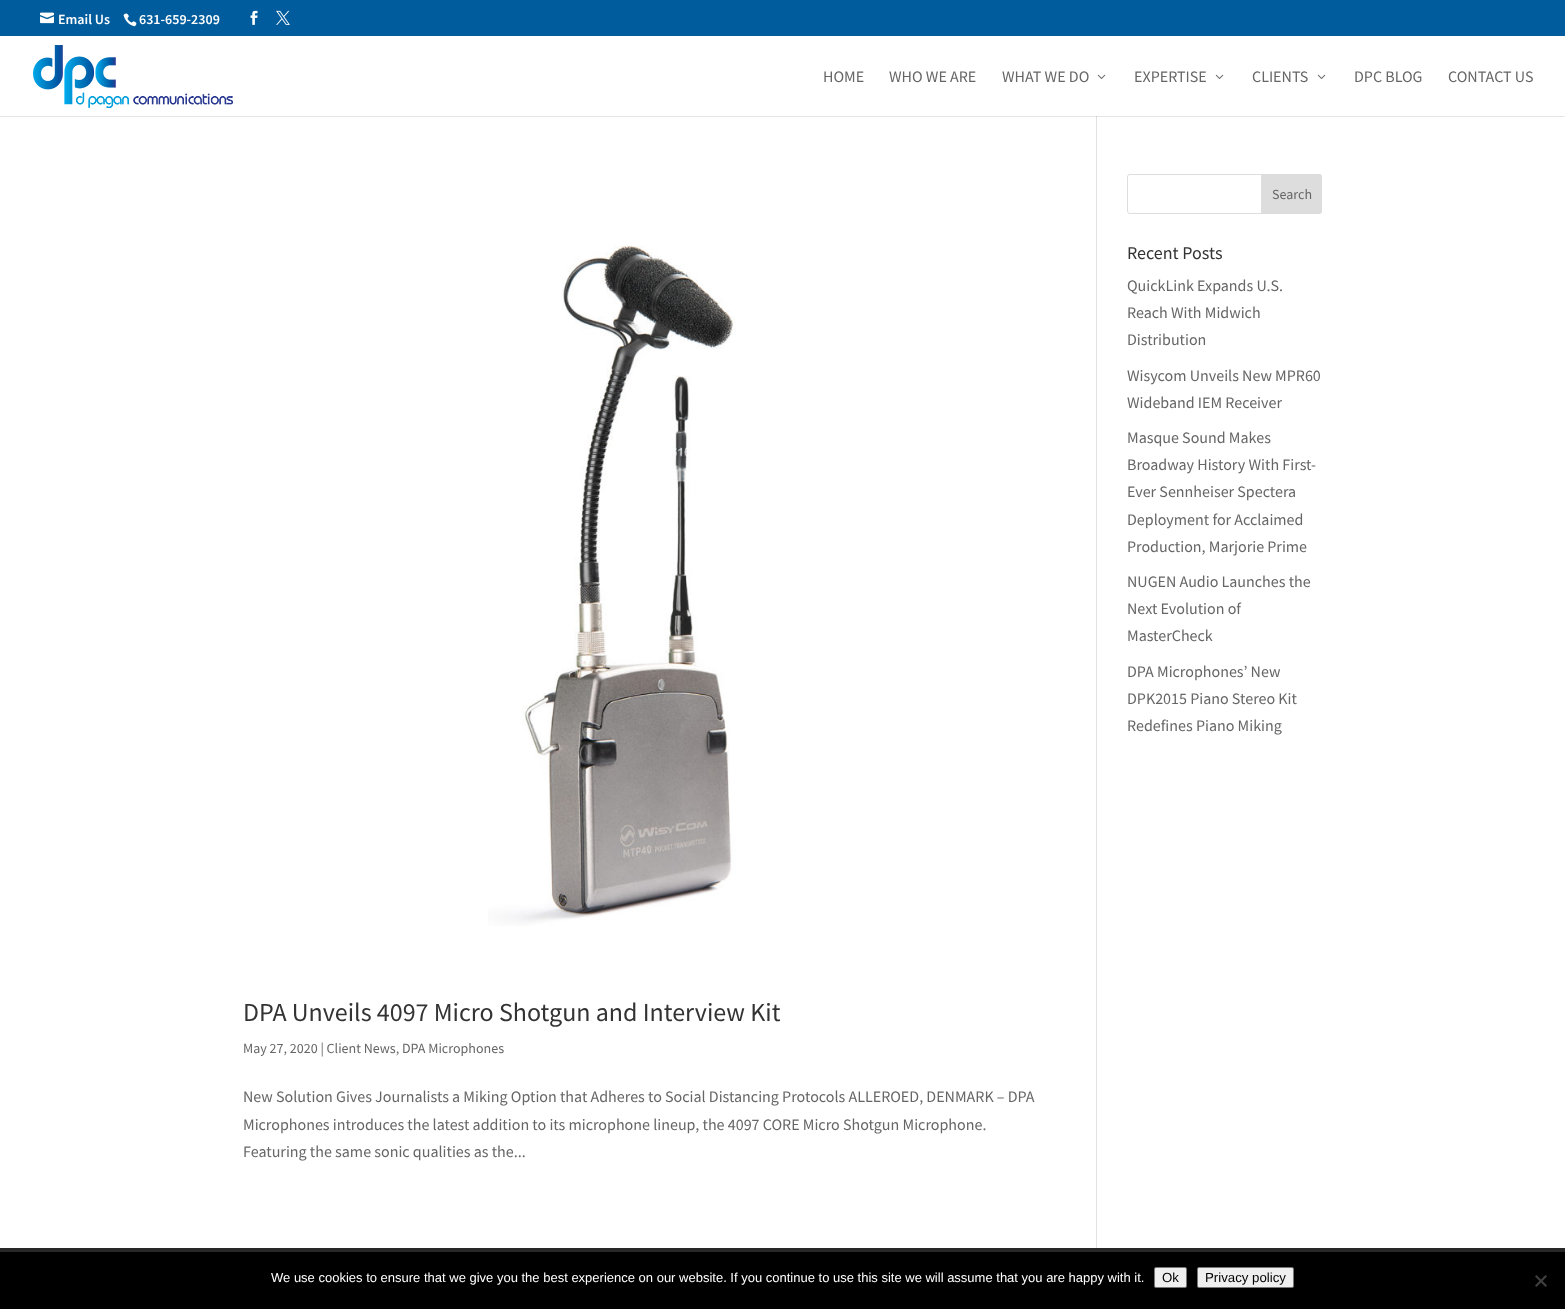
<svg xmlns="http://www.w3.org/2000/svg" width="1565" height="1309">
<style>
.a{font:600 14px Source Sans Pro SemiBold;fill:#fff}
.b{font:16px Source Sans Pro;fill:#666}
.c{font:14px Source Sans Pro;fill:#666}
.d{font:18px Source Sans Pro;fill:#333}
.e{font:26px Source Sans Pro;fill:#333}
.f{font:13px Liberation Sans;fill:#fff}
.g{font:13.25px Liberation Sans;fill:#000}
</style>
<rect width="100%" height="100%" fill="#fff"/>
<path fill="#e6e6e6" d="M0 116h1565v1H0z"/>
<path fill="#005c9c" d="M0 0h1565v36H0z"/>
<image href="1.png" x="40" y="12" width="14" height="12"/>
<image href="2.png" x="123" y="13" width="14" height="14"/>
<image href="3.png" x="250" y="10" width="8" height="15"/>
<image href="4.png" x="276" y="10" width="14" height="15"/>
<image href="5.png" x="33" y="45" width="200" height="63"/>
<image href="6.png" x="1097" y="74" width="9" height="5"/>
<image href="6.png" x="1215" y="74" width="9" height="5"/>
<image href="6.png" x="1317" y="74" width="9" height="5"/>
<path fill="#e2e2e2" d="M1096 116h1v1132H1096z"/>
<path fill="#cbcbcb" d="M1096 116h1v1H1096z"/>
<rect fill="none" stroke="#ddd" x="1127.5" y="174.5" width="194" height="39" rx="2.5"/>
<path fill="#ddd" stroke="#ddd" d="M1261.5 174.5h57.5c1.5 0 2.5 1 2.5 2.5v34c0 1.5-1 2.5-2.5 2.5h-57.5z"/>
<image href="7.png" x="488" y="245" width="248" height="681"/>
<path fill="#282828" d="M0 1248h1565v4H0z"/>
<path fill="#000" d="M0 1252h1565v57H0z"/>
<rect fill="#efefef" stroke="#767676" x="1154.5" y="1267.5" width="32" height="20" rx="1.5"/>
<rect fill="#efefef" stroke="#767676" x="1197.5" y="1267.5" width="96" height="20" rx="1.5"/>
<path fill="#404040" d="M1545.5 1275l1.5 1.5l-10.5 10.5l-1.5-1.5z"/>
<path fill="#404040" d="M1535 1276.5l1.5-1.5l10.5 10.5l-1.5 1.5z"/>
<text class="a" x="58" y="24">Email Us</text>
<text class="a" x="139" y="24">631-659-2309</text>
<text class="b" x="823" y="82">HOME</text>
<text class="b" x="889" y="82">WHO WE ARE</text>
<text class="b" x="1002" y="82">WHAT WE DO</text>
<text class="b" x="1134" y="82">EXPERTISE</text>
<text class="b" x="1252" y="82">CLIENTS</text>
<text class="b" x="1354" y="82">DPC BLOG</text>
<text class="b" x="1448" y="82">CONTACT US</text>
<text class="c" x="1272" y="199">Search</text>
<text class="d" x="1127" y="259">Recent Posts</text>
<text class="b" x="1127" y="291">QuickLink Expands U.S.</text>
<text class="b" x="1127" y="318">Reach With Midwich</text>
<text class="b" x="1127" y="345">Distribution</text>
<text class="b" x="1127" y="381">Wisycom Unveils New MPR60</text>
<text class="b" x="1127" y="408">Wideband IEM Receiver</text>
<text class="b" x="1127" y="443">Masque Sound Makes</text>
<text class="b" x="1127" y="470">Broadway History With First-</text>
<text class="b" x="1127" y="497">Ever Sennheiser Spectera</text>
<text class="b" x="1127" y="525">Deployment for Acclaimed</text>
<text class="b" x="1127" y="552">Production, Marjorie Prime</text>
<text class="b" x="1127" y="587">NUGEN Audio Launches the</text>
<text class="b" x="1127" y="614">Next Evolution of</text>
<text class="b" x="1127" y="641">MasterCheck</text>
<text class="b" x="1127" y="677">DPA Microphones’ New</text>
<text class="b" x="1127" y="704">DPK2015 Piano Stereo Kit</text>
<text class="b" x="1127" y="731">Redefines Piano Miking</text>
<text class="e" x="243" y="1021">DPA Unveils 4097 Micro Shotgun and Interview Kit</text>
<text class="c" x="243" y="1053">May 27, 2020 | Client News, DPA Microphones</text>
<text class="b" x="243" y="1102">New Solution Gives Journalists a Miking Option that Adheres to Social Distancing Protocols ALLEROED, DENMARK – DPA</text>
<text class="b" x="243" y="1130">Microphones introduces the latest addition to its microphone lineup, the 4097 CORE Micro Shotgun Microphone.</text>
<text class="b" x="243" y="1157">Featuring the same sonic qualities as the...</text>
<text class="f" x="271" y="1282">We use cookies to ensure that we give you the best experience on our website. If you continue to use this site we will assume that you are happy with it.</text>
<text class="g" x="1162" y="1282">Ok</text>
<text class="g" x="1205" y="1282">Privacy policy</text>
</svg>
